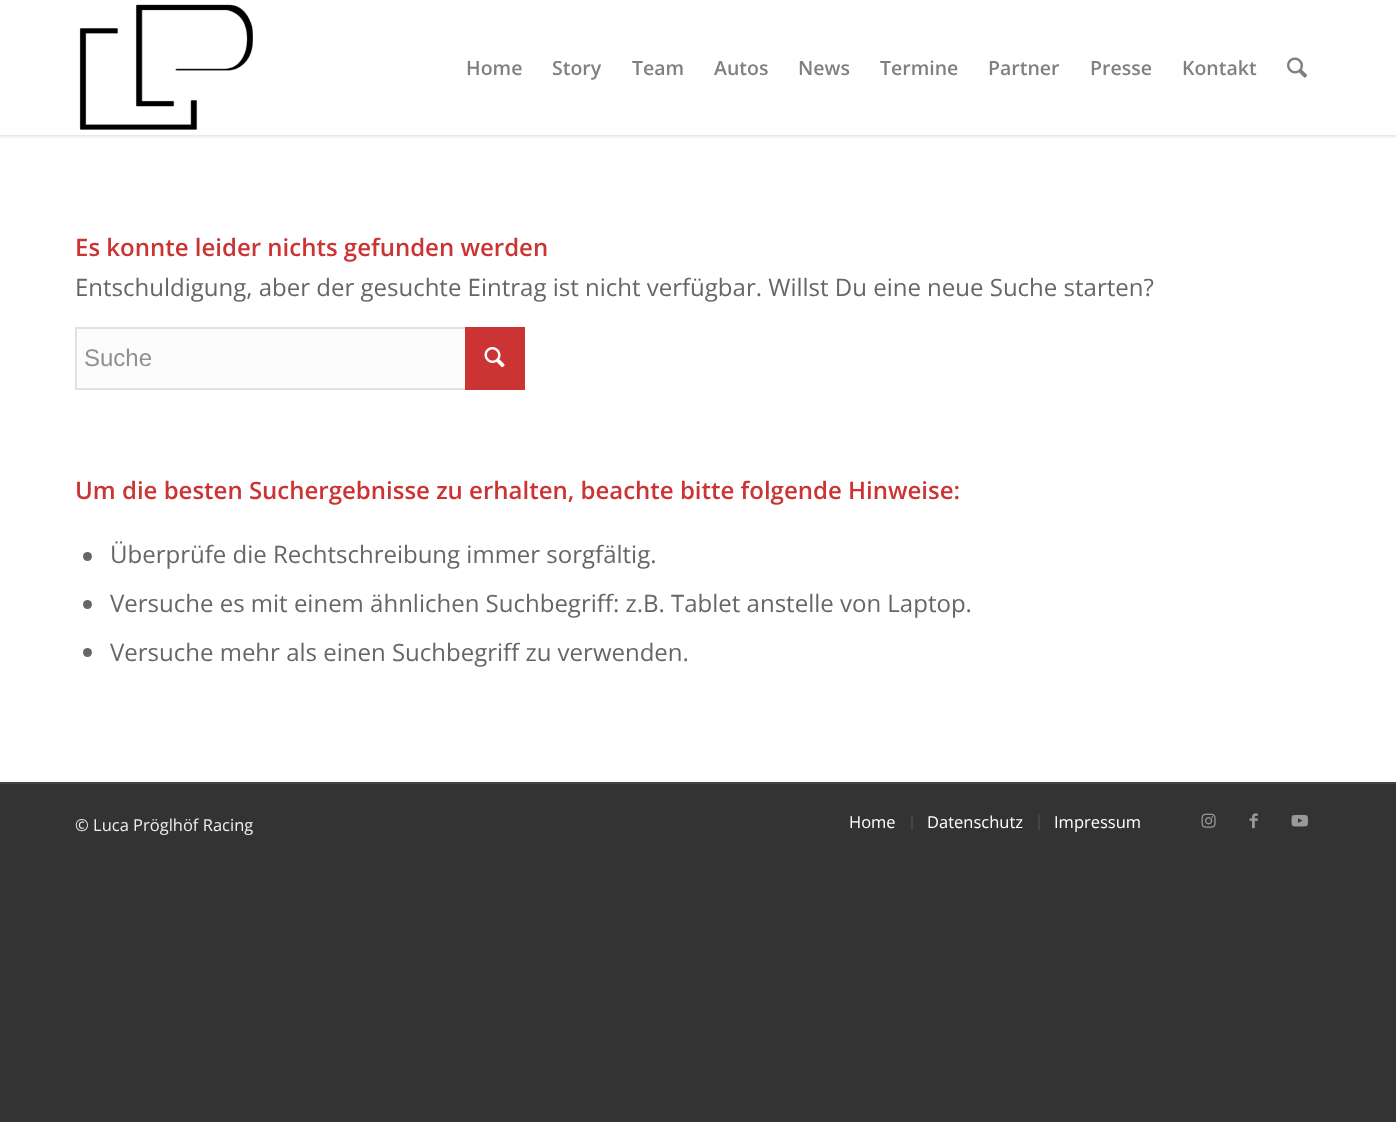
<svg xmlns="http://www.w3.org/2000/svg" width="1396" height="1122">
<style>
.a{font:600 19.5px Open Sans;fill:#808080}
.b{font:600 24px Open Sans;fill:#c33}
.c{font:24px Open Sans;fill:#666}
.d{font:24px Liberation Sans;fill:#919191}
.e{font:16.5px Open Sans;fill:#eee}
.f{font:16.5px Open Sans;fill:#fff}
</style>
<defs>
<clipPath id="clip1"><path d="M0 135h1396v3H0z"/></clipPath>
</defs>
<rect width="100%" height="100%" fill="#333"/>
<path fill="#fff" d="M0 0h1396v782H0z"/>
<g clip-path="url(#clip1)">
<path fill="#0000001a" filter="blur(1.5px)" d="M-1 -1h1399v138H-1z"/>
</g>
<image href="1.png" x="79" y="4" width="174" height="126"/>
<image href="2.png" x="1287" y="57" width="21" height="21"/>
<path fill="#fcfcfc" d="M77 329h388v59H77z"/>
<path fill="none" stroke="#e1e1e1" stroke-width="2" d="M76 328h448v61H76z"/>
<path fill="#c33" d="M465 327h60v63H465z"/>
<image href="3.png" x="484" y="347" width="21" height="21"/>
<circle fill="#666" cx="87.5" cy="556.5" r="4.5"/>
<circle fill="#666" cx="87.5" cy="604.5" r="4.5"/>
<circle fill="#666" cx="87.5" cy="652.5" r="4.5"/>
<path fill="#444" d="M0 782h1396v2H0z"/>
<path fill="#444" d="M911 815h2v15H911z"/>
<path fill="#444" d="M1038 815h2v15H1038z"/>
<image href="4.png" x="1201" y="813" width="15" height="15"/>
<image href="5.png" x="1249" y="813" width="9" height="16"/>
<image href="6.png" x="1291" y="814" width="17" height="13"/>
<text class="a" x="466" y="75">Home</text>
<text class="a" x="552" y="75">Story</text>
<text class="a" x="632" y="75">Team</text>
<text class="a" x="714" y="75">Autos</text>
<text class="a" x="798" y="75">News</text>
<text class="a" x="880" y="75">Termine</text>
<text class="a" x="988" y="75">Partner</text>
<text class="a" x="1090" y="75">Presse</text>
<text class="a" x="1182" y="75">Kontakt</text>
<text class="b" x="75" y="256">Es konnte leider nichts gefunden werden</text>
<text class="c" x="75" y="296">Entschuldigung, aber der gesuchte Eintrag ist nicht verfügbar. Willst Du eine neue Suche starten?</text>
<text class="d" x="84" y="366">Suche</text>
<text class="b" x="75" y="499">Um die besten Suchergebnisse zu erhalten, beachte bitte folgende Hinweise:</text>
<text class="c" x="110" y="563">Überprüfe die Rechtschreibung immer sorgfältig.</text>
<text class="c" x="110" y="612">Versuche es mit einem ähnlichen Suchbegriff: z.B. Tablet anstelle von Laptop.</text>
<text class="c" x="110" y="661">Versuche mehr als einen Suchbegriff zu verwenden.</text>
<text class="e" x="75" y="831">© Luca Pröglhöf Racing</text>
<text class="f" x="849" y="828">Home</text>
<text class="f" x="927" y="828">Datenschutz</text>
<text class="f" x="1054" y="828">Impressum</text>
</svg>
